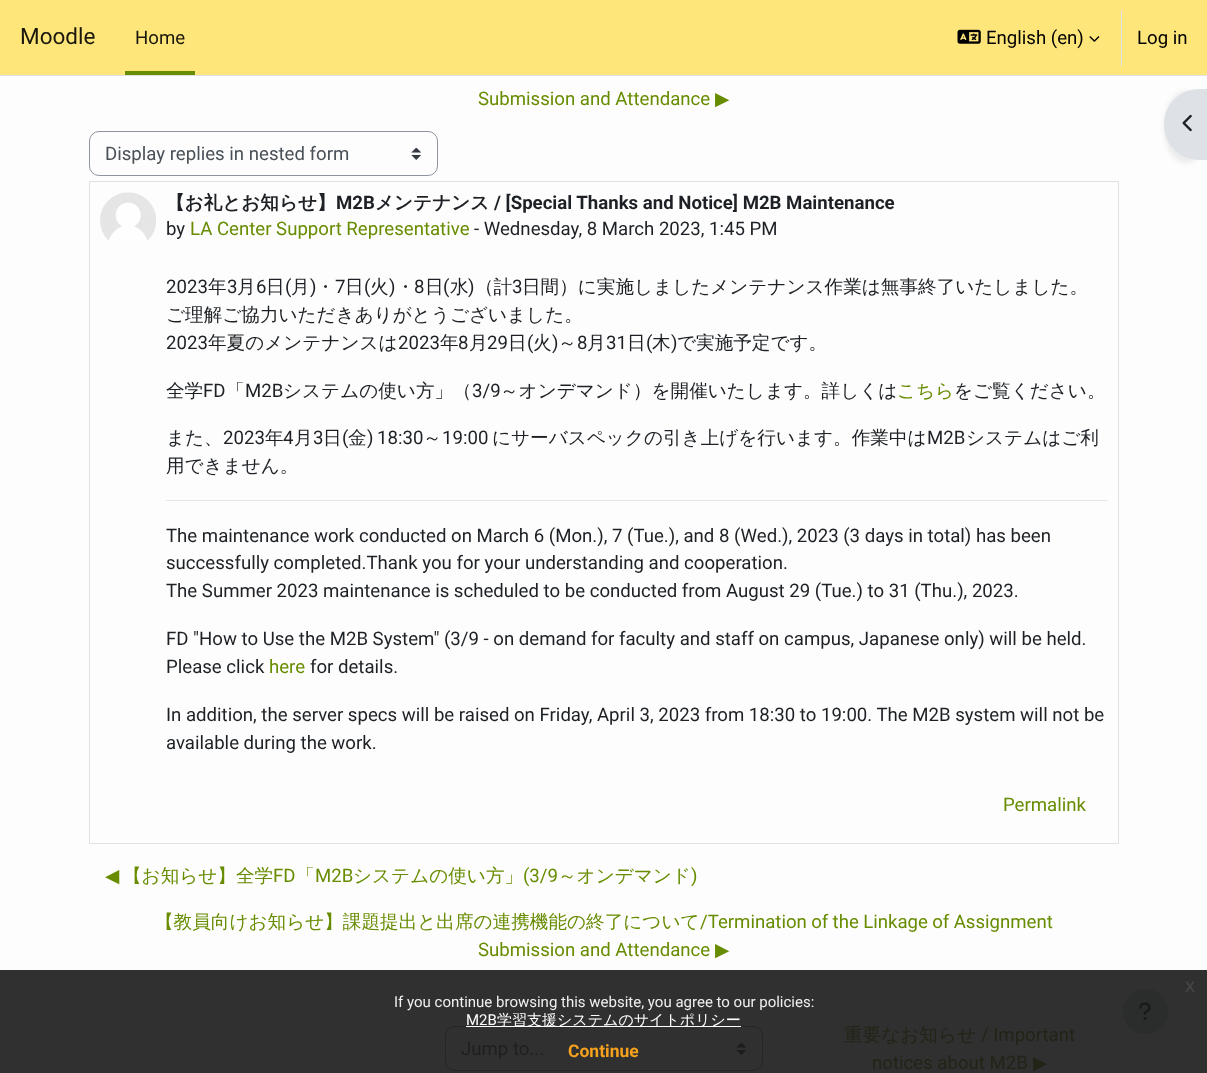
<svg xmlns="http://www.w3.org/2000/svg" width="1207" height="1073">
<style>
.a{font:22.5px Roboto;fill:#1a170c}
.b{font:18.62px Roboto;fill:#1a170c}
.c{font:18.62px Roboto;fill:#000}
.d{font:18.62px Roboto;fill:#678c00}
.e{font:18.62px DejaVu Sans;fill:#678c00}
.f{font:18.62px Roboto;fill:#495057}
.g{font:bold 18.62px WenQuanYi Zen Hei;fill:#1d2125}
.h{font:bold 18.62px Roboto;fill:#1d2125}
.i{font:18.62px Roboto;fill:#1d2125}
.j{font:500 18.62px WenQuanYi Zen Hei;fill:#1d2125}
.k{font:500 18.62px WenQuanYi Zen Hei;fill:#678c00}
.l{font:18.62px Roboto;fill:#1e1f1f}
.m{font:500 18.62px WenQuanYi Zen Hei;fill:#212517}
.n{font:18.62px Roboto;fill:#212517}
.o{font:18.62px DejaVu Sans;fill:#212517}
.p{font:20px Liberation Sans;fill:#474747}
.q{font:15px Roboto;fill:#efefef}
.r{font:15px Roboto;fill:#fff}
.s{font:500 15px WenQuanYi Zen Hei;fill:#fff}
.t{font:bold 17.5px Roboto;fill:#f6a21d}
</style>
<rect width="100%" height="100%" fill="#fdfdfd"/>
<path fill="#303030" d="M0 970h1207v103H0z"/>
<path fill="#ffe67a" d="M0 0h1207v75H0z"/>
<path fill="#dee2e6" d="M0 75h1207v1H0z"/>
<path fill="#678c00" d="M125 71h70v4H125z"/>
<image href="1.png" x="957" y="29" width="24" height="15"/>
<image href="2.png" x="1089" y="36" width="11" height="6"/>
<path fill="#dee2e6" d="M1121 10h1v56H1121z"/>
<image href="3.png" x="411" y="148" width="10" height="12"/>
<rect fill="none" stroke="#8f959e" x="89.5" y="131.5" width="348" height="44" rx="9.5"/>
<path fill="none" stroke="#dee2e6" d="M89.5 181.5h1029v662H89.5z"/>
<image href="4.png" x="100" y="192" width="56" height="49"/>
<path fill="#e6e6e6" d="M166 500h942v1H166z"/>
<image href="5.png" x="736" y="1043" width="10" height="12"/>
<rect fill="none" stroke="#252526" x="445.5" y="1026.5" width="317" height="44" rx="9.5"/>
<rect fill="#00000012" filter="blur(2.5px)" x="1164" y="91" width="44" height="72" rx="35"/>
<path fill="#dee2e6" d="M1199 89h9v71h-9c-19.5 0-35-15.5-35-35v-1c0-19.5 15.5-35 35-35z"/>
<image href="6.png" x="1182" y="114" width="10" height="18"/>
<circle fill="#2b2c2c" cx="1145.5" cy="1011.5" r="22.5"/>
<image href="7.png" x="1139" y="1002" width="12" height="18"/>
<path fill="#fff" d="M466 1026h275v1H466z"/>
<text class="a" x="20" y="44">Moodle</text>
<text class="b" x="135" y="44">Home</text>
<text class="c" x="986" y="44">English (en)</text>
<text class="c" x="1137" y="44">Log in</text>
<text class="d" x="478" y="105">Submission and Attendance</text>
<text class="e" x="715" y="105">▶︎</text>
<text class="f" x="105" y="160">Display replies in nested form</text>
<text class="g" x="166" y="209">【お礼とお知らせ】</text>
<text class="h" x="336" y="209">M2B</text>
<text class="g" x="375" y="209">メンテナンス</text>
<text class="h" x="494" y="209">/ [Special Thanks and Notice] M2B Maintenance</text>
<text class="i" x="166" y="235">by</text>
<text class="d" x="190" y="235">LA Center Support Representative</text>
<text class="i" x="474" y="235">- Wednesday, 8 March 2023, 1:45 PM</text>
<text class="i" x="166" y="293">2023</text>
<text class="j" x="208" y="293">年</text>
<text class="i" x="227" y="293">3</text>
<text class="j" x="237" y="293">月</text>
<text class="i" x="256" y="293">6</text>
<text class="j" x="266" y="293">日</text>
<text class="i" x="285" y="293">(</text>
<text class="j" x="291" y="293">月</text>
<text class="i" x="310" y="293">)</text>
<text class="j" x="316" y="293">・</text>
<text class="i" x="335" y="293">7</text>
<text class="j" x="345" y="293">日</text>
<text class="i" x="364" y="293">(</text>
<text class="j" x="370" y="293">火</text>
<text class="i" x="389" y="293">)</text>
<text class="j" x="396" y="293">・</text>
<text class="i" x="414" y="293">8</text>
<text class="j" x="425" y="293">日</text>
<text class="i" x="443" y="293">(</text>
<text class="j" x="450" y="293">水</text>
<text class="i" x="468" y="293">)</text>
<text class="j" x="475" y="293">（計</text>
<text class="i" x="512" y="293">3</text>
<text class="j" x="522" y="293">日間）に実施しましたメンテナンス作業は無事終了いたしました。</text>
<text class="j" x="166" y="321">ご理解ご協力いただきありがとうございました。</text>
<text class="i" x="166" y="349">2023</text>
<text class="j" x="208" y="349">年夏のメンテナンスは</text>
<text class="i" x="398" y="349">2023</text>
<text class="j" x="440" y="349">年</text>
<text class="i" x="458" y="349">8</text>
<text class="j" x="469" y="349">月</text>
<text class="i" x="487" y="349">29</text>
<text class="j" x="508" y="349">日</text>
<text class="i" x="527" y="349">(</text>
<text class="j" x="533" y="349">火</text>
<text class="i" x="552" y="349">)</text>
<text class="j" x="558" y="349">～</text>
<text class="i" x="577" y="349">8</text>
<text class="j" x="587" y="349">月</text>
<text class="i" x="606" y="349">31</text>
<text class="j" x="627" y="349">日</text>
<text class="i" x="646" y="349">(</text>
<text class="j" x="652" y="349">木</text>
<text class="i" x="671" y="349">)</text>
<text class="j" x="677" y="349">で実施予定です。</text>
<text class="j" x="166" y="397">全学</text>
<text class="i" x="203" y="397">FD</text>
<text class="j" x="226" y="397">「</text>
<text class="i" x="245" y="397">M2B</text>
<text class="j" x="283" y="397">システムの使い方」（</text>
<text class="i" x="472" y="397">3/9</text>
<text class="j" x="500" y="397">～オンデマンド）を開催いたします。詳しくは</text>
<text class="k" x="897" y="397">こちら</text>
<text class="j" x="954" y="397">をご覧ください。</text>
<text class="j" x="166" y="444">また、</text>
<text class="i" x="223" y="444">2023</text>
<text class="j" x="265" y="444">年</text>
<text class="i" x="283" y="444">4</text>
<text class="j" x="294" y="444">月</text>
<text class="i" x="313" y="444">3</text>
<text class="j" x="323" y="444">日</text>
<text class="i" x="342" y="444">(</text>
<text class="j" x="348" y="444">金</text>
<text class="i" x="367" y="444" word-spacing="-1">) 18:30</text>
<text class="j" x="423" y="444">～</text>
<text class="i" x="442" y="444">19:00</text>
<text class="j" x="492" y="444">にサーバスペックの引き上げを行います。作業中は</text>
<text class="i" x="927" y="444">M2B</text>
<text class="j" x="966" y="444">システムはご利</text>
<text class="j" x="166" y="472">用できません。</text>
<text class="i" x="166" y="542">The maintenance work conducted on March 6 (Mon.), 7 (Tue.), and 8 (Wed.), 2023 (3 days in total) has been</text>
<text class="i" x="166" y="569">successfully completed.Thank you for your understanding and cooperation.</text>
<text class="i" x="166" y="597">The Summer 2023 maintenance is scheduled to be conducted from August 29 (Tue.) to 31 (Thu.), 2023.</text>
<text class="i" x="166" y="645">FD "How to Use the M2B System" (3/9 - on demand for faculty and staff on campus, Japanese only) will be held.</text>
<text class="i" x="166" y="673">Please click</text>
<text class="d" x="269" y="673">here</text>
<text class="i" x="310" y="673">for details.</text>
<text class="i" x="166" y="721">In addition, the server specs will be raised on Friday, April 3, 2023 from 18:30 to 19:00. The M2B system will not be</text>
<text class="i" x="166" y="749">available during the work.</text>
<text class="d" x="1003" y="811">Permalink</text>
<text class="e" x="105" y="882">◀︎</text>
<text class="k" x="123" y="882">【お知らせ】全学</text>
<text class="d" x="273" y="882">FD</text>
<text class="k" x="296" y="882">「</text>
<text class="d" x="315" y="882">M2B</text>
<text class="k" x="353" y="882">システムの使い方」</text>
<text class="d" x="523" y="882">(3/9</text>
<text class="k" x="558" y="882">～オンデマンド</text>
<text class="d" x="691" y="882">)</text>
<text class="k" x="155" y="928">【教員向けお知らせ】課題提出と出席の連携機能の終了について</text>
<text class="d" x="700" y="928" word-spacing="-0.25">/Termination of the Linkage of Assignment</text>
<text class="d" x="478" y="956">Submission and Attendance</text>
<text class="e" x="715" y="956">▶︎</text>
<text class="l" x="461" y="1055">Jump to...</text>
<text class="m" x="844" y="1041">重要なお知らせ</text>
<text class="n" x="981" y="1041">/ Important</text>
<text class="n" x="872" y="1069">notices about M2B</text>
<text class="o" x="1033" y="1069">▶︎</text>
<text class="p" x="1185" y="992">x</text>
<text class="q" x="394" y="1007">If you continue browsing this website, you agree to our policies:</text>
<text class="r" x="466" y="1025">M2B</text>
<text class="s" x="497" y="1025">学習支援システムのサイトポリシー</text>
<text class="t" x="568" y="1057">Continue</text>
</svg>
